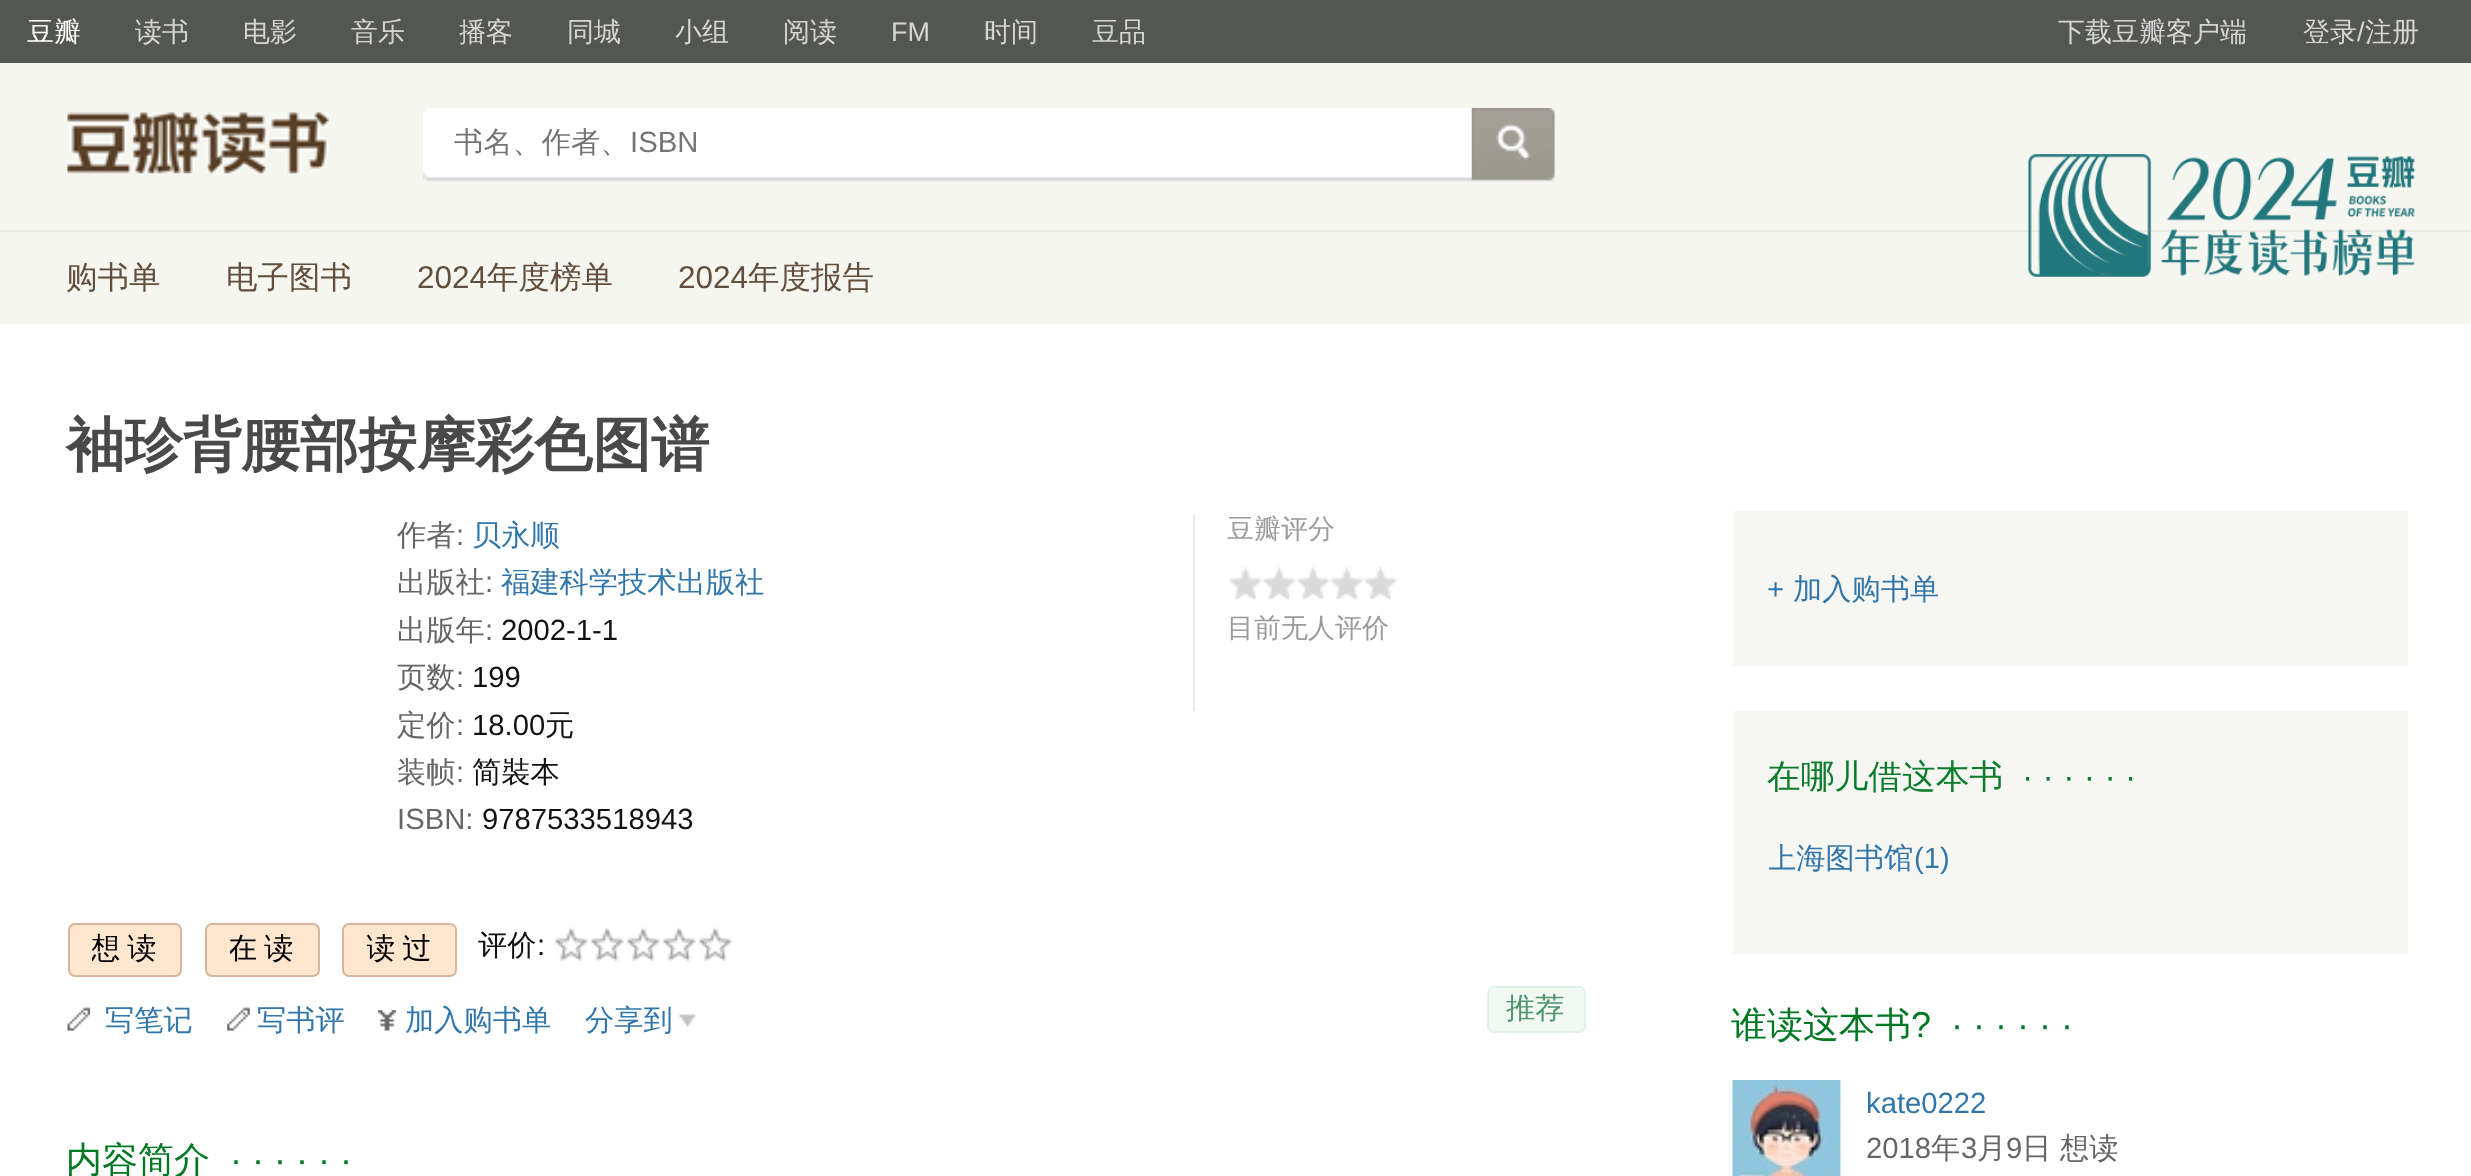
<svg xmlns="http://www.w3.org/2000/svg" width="2471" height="1176">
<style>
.a{font:500 27px WenQuanYi Zen Hei;fill:#fff}
.b{font:500 27px WenQuanYi Zen Hei;fill:#d5d5d5}
.c{font:27px Liberation Sans;fill:#d5d5d5}
.d{font:500 29.25px WenQuanYi Zen Hei;fill:#757575}
.e{font:29.25px Liberation Sans;fill:#757575}
.f{font:500 31.5px WenQuanYi Zen Hei;fill:#614e3c}
.g{font:31.5px Liberation Sans;fill:#614e3c}
.h{font:bold 58.5px WenQuanYi Zen Hei;fill:#494949}
.i{font:500 29.25px WenQuanYi Zen Hei;fill:#666}
.j{font:29.25px Liberation Sans;fill:#666}
.k{font:500 29.25px WenQuanYi Zen Hei;fill:#37a}
.l{font:29.25px Liberation Sans;fill:#111}
.m{font:500 29.25px WenQuanYi Zen Hei;fill:#111}
.n{font:500 27px WenQuanYi Zen Hei;fill:#9b9b9b}
.o{font:500 29.25px WenQuanYi Zen Hei;letter-spacing:7px;fill:#000}
.p{font:500 29.25px WenQuanYi Zen Hei;fill:#4f946e}
.q{font:500 36px WenQuanYi Zen Hei;fill:#072}
.r{font:36px Liberation Sans;fill:#072}
.s{font:29.25px Liberation Sans;fill:#37a}
.t{font:500 33.75px WenQuanYi Zen Hei;fill:#0b7c2a}
.u{font:33.75px Liberation Sans;fill:#0b7c2a}
</style>
<defs>
<clipPath id="clip1"><path d="M92 929h72v41H92z"/></clipPath>
<clipPath id="clip2"><path d="M230 929h72v41H230z"/></clipPath>
<clipPath id="clip3"><path d="M367 929h72v41H367z"/></clipPath>
<clipPath id="clip4"><path d="M1769 826h603v65H1769z"/></clipPath>
</defs>
<rect width="100%" height="100%" fill="#fff"/>
<path fill="#545652" d="M0 0h2471v63H0z"/>
<path fill="#f6f6f1" d="M0 63h2471v261H0z"/>
<path fill="#e9e9e2" d="M0 230h2471v2H0z"/>
<image href="1.png" x="67" y="112" width="262" height="62"/>
<image href="2.png" x="423" y="108" width="1058" height="74"/>
<image href="3.png" x="1471" y="108" width="84" height="74"/>
<image href="4.png" x="2028" y="154" width="387" height="123"/>
<path fill="#eaeaea" d="M1193 515h2v196H1193z"/>
<image href="5.png" x="1228" y="567" width="169" height="34"/>
<rect fill="#ffe6ce" stroke="#d6b79d" stroke-width="2" x="69" y="924" width="112" height="52" rx="6"/>
<rect fill="#ffe6ce" stroke="#d6b79d" stroke-width="2" x="206" y="924" width="113" height="52" rx="6"/>
<rect fill="#ffe6ce" stroke="#d6b79d" stroke-width="2" x="343" y="924" width="113" height="52" rx="6"/>
<image href="6.png" x="554" y="927" width="34" height="35"/>
<image href="7.png" x="590" y="927" width="34" height="35"/>
<image href="7.png" x="626" y="927" width="34" height="35"/>
<image href="6.png" x="662" y="927" width="34" height="35"/>
<image href="6.png" x="698" y="927" width="34" height="35"/>
<image href="8.png" x="67" y="1007" width="23" height="24"/>
<image href="9.png" x="227" y="1007" width="23" height="24"/>
<image href="10.png" x="378" y="1010" width="18" height="21"/>
<image href="11.png" x="679" y="1014" width="17" height="12"/>
<rect fill="#f2f8f2" stroke="#e3f1ed" stroke-width="2" x="1488" y="987" width="97" height="45" rx="6"/>
<path fill="#f6f6f2" d="M1733 511h675v155H1733z"/>
<path fill="#f6f6f2" d="M1733 711h675v243H1733z"/>
<image href="12.png" x="1732" y="1080" width="109" height="96"/>
<text class="a" x="27" y="41">豆瓣</text>
<text class="b" x="135" y="41">读书</text>
<text class="b" x="243" y="41">电影</text>
<text class="b" x="351" y="41">音乐</text>
<text class="b" x="459" y="41">播客</text>
<text class="b" x="567" y="41">同城</text>
<text class="b" x="675" y="41">小组</text>
<text class="b" x="783" y="41">阅读</text>
<text class="c" x="891" y="41">FM</text>
<text class="b" x="984" y="41">时间</text>
<text class="b" x="1092" y="41">豆品</text>
<text class="b" x="2058" y="41">下载豆瓣客户端</text>
<text class="b" x="2303" y="41">登录</text>
<text class="c" x="2357" y="41">/</text>
<text class="b" x="2365" y="41">注册</text>
<text class="d" x="454" y="152">书名、作者、</text>
<text class="e" x="630" y="152">ISBN</text>
<text class="f" x="66" y="288">购书单</text>
<text class="f" x="226" y="288">电子图书</text>
<text class="g" x="417" y="288">2024</text>
<text class="f" x="487" y="288">年度榜单</text>
<text class="g" x="678" y="288">2024</text>
<text class="f" x="748" y="288">年度报告</text>
<text class="h" x="66" y="465">袖珍背腰部按摩彩色图谱</text>
<text class="i" x="397" y="545">作者</text>
<text class="j" x="456" y="545">:</text>
<text class="k" x="472" y="545">贝永顺</text>
<text class="i" x="397" y="592">出版社</text>
<text class="j" x="485" y="592">:</text>
<text class="k" x="501" y="592">福建科学技术出版社</text>
<text class="i" x="397" y="640">出版年</text>
<text class="j" x="485" y="640">:</text>
<text class="l" x="501" y="640">2002-1-1</text>
<text class="i" x="397" y="687">页数</text>
<text class="j" x="456" y="687">:</text>
<text class="l" x="472" y="687">199</text>
<text class="i" x="397" y="735">定价</text>
<text class="j" x="456" y="735">:</text>
<text class="l" x="472" y="735">18.00</text>
<text class="m" x="545" y="735">元</text>
<text class="i" x="397" y="782">装帧</text>
<text class="j" x="456" y="782">:</text>
<text class="m" x="472" y="782">简裝本</text>
<text class="j" x="397" y="829">ISBN:</text>
<text class="l" x="482" y="829">9787533518943</text>
<text class="n" x="1227" y="538">豆瓣评分</text>
<text class="n" x="1227" y="637">目前无人评价</text>
<g clip-path="url(#clip1)">
<text class="o" x="91" y="958">想读</text>
</g>
<g clip-path="url(#clip2)">
<text class="o" x="228" y="958">在读</text>
</g>
<g clip-path="url(#clip3)">
<text class="o" x="366" y="958">读过</text>
</g>
<text class="m" x="478" y="955">评价</text>
<text class="l" x="537" y="955">:</text>
<text class="k" x="105" y="1030">写笔记</text>
<text class="k" x="257" y="1030">写书评</text>
<text class="k" x="405" y="1030">加入购书单</text>
<text class="k" x="585" y="1030">分享到</text>
<text class="p" x="1506" y="1018">推荐</text>
<text class="q" x="66" y="1172">内容简介</text>
<text class="r" x="230" y="1172">· · · · · ·</text>
<text class="s" x="1767" y="599">+</text>
<text class="k" x="1793" y="599">加入购书单</text>
<text class="t" x="1767" y="788">在哪儿借这本书</text>
<text class="u" x="2022" y="788">· · · · · ·</text>
<g clip-path="url(#clip4)">
<text class="k" x="1767" y="868">上海图书馆</text>
</g>
<text class="s" x="1914" y="868">(1)</text>
<text class="q" x="1731" y="1037">谁读这本书</text>
<text class="r" x="1911" y="1037">?</text>
<text class="r" x="1951" y="1037">· · · · · ·</text>
<text class="s" x="1866" y="1113">kate0222</text>
<text class="j" x="1866" y="1158">2018</text>
<text class="i" x="1931" y="1158">年</text>
<text class="j" x="1961" y="1158">3</text>
<text class="i" x="1977" y="1158">月</text>
<text class="j" x="2006" y="1158">9</text>
<text class="i" x="2022" y="1158">日</text>
<text class="i" x="2060" y="1158">想读</text>
</svg>
